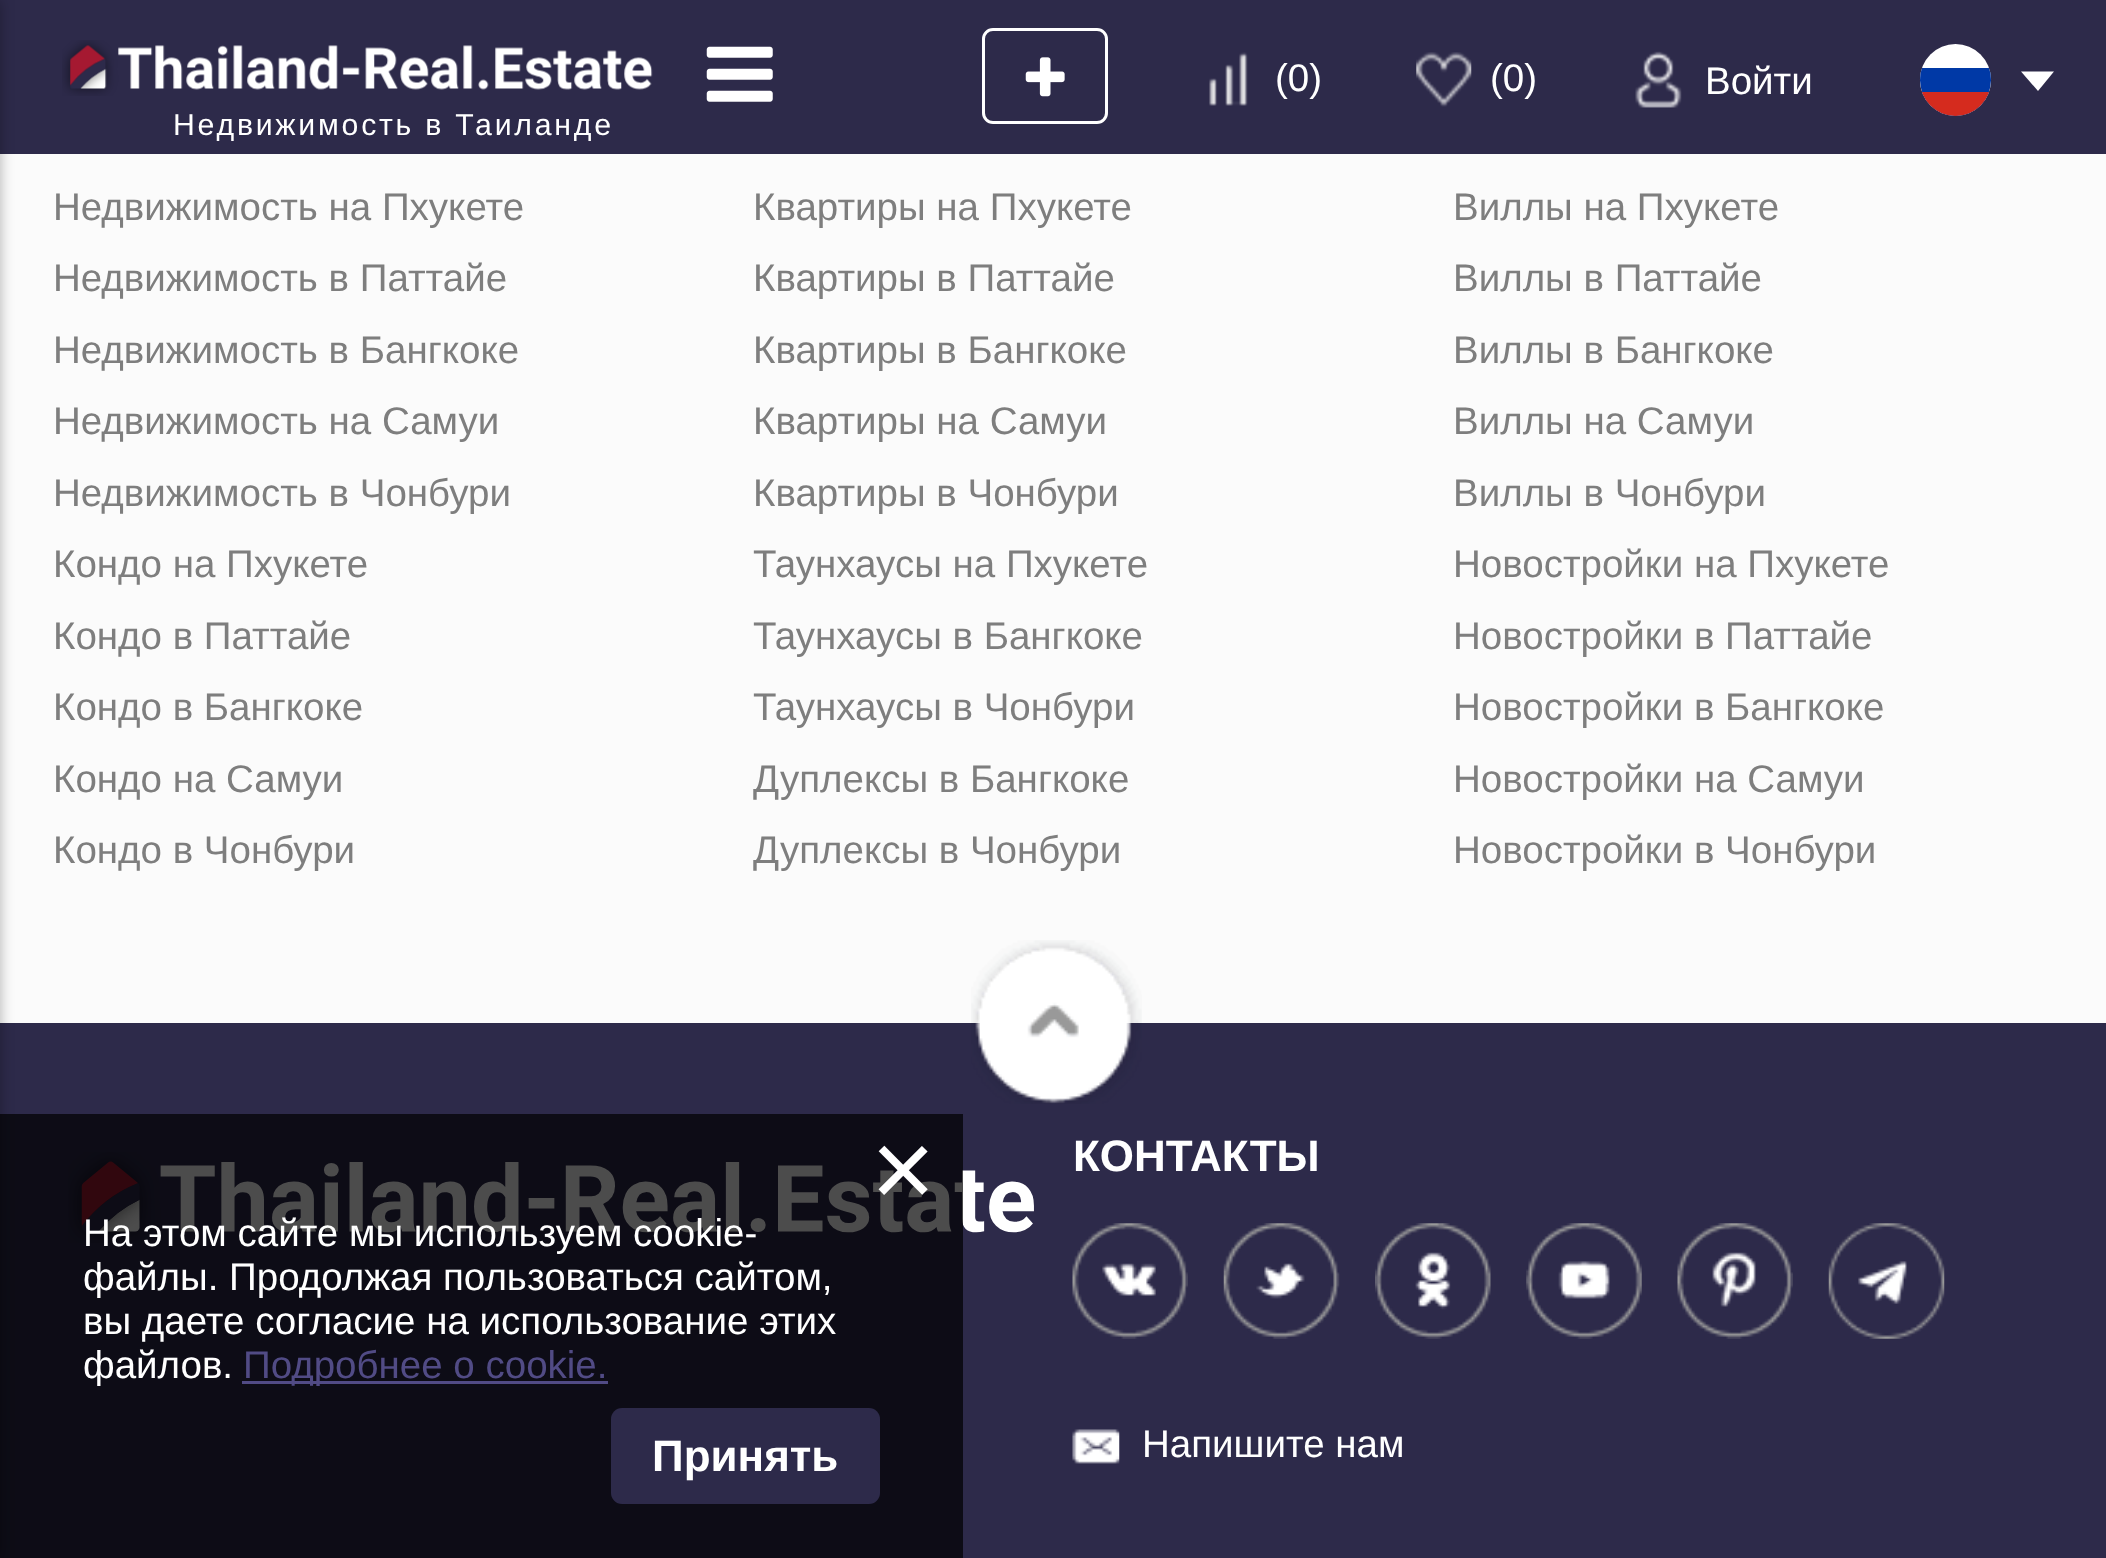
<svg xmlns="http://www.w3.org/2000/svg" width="2106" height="1558">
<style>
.a{font:38.5px Liberation Sans;fill:#fff}
.b{font:30.25px Liberation Sans;letter-spacing:2.75px;fill:#fff}
.c{font:38.5px Liberation Sans;fill:#7e7e7e}
.d{font:bold 44px Liberation Sans;fill:#fff}
.e{font:110px Liberation Sans;fill:#fff}
.f{font:38.5px Liberation Sans;fill:#514b85}
</style>
<defs>
<clipPath id="clip1"><rect x="1920" y="44" width="71" height="72" rx="35.5"/></clipPath>
</defs>
<rect width="100%" height="100%" fill="#fbfbfb"/>
<path fill="#2d2a4a" d="M0 0h2106v154H0z"/>
<path fill="#2d2a4a" d="M0 1023h2106v535H0z"/>
<path fill="#0000004d" filter="blur(7px)" d="M-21 0h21v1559H-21z"/>
<image href="1.png" x="706" y="46" width="67" height="56"/>
<rect fill="none" stroke="#fff" stroke-width="3" x="983.5" y="29.5" width="123" height="93" rx="9.5"/>
<image href="2.png" x="1025" y="57" width="40" height="40"/>
<image href="3.png" x="1209" y="52" width="39" height="54"/>
<image href="4.png" x="1416" y="52" width="56" height="55"/>
<image href="5.png" x="1635" y="51" width="47" height="57"/>
<rect fill="#fff" x="1920" y="44" width="71" height="72" rx="35.5"/>
<g clip-path="url(#clip1)">
<path fill="#0039a6" d="M1920 68h71v12.5c0 19.5-16 35.5-35.5 35.5c-19.5 0-35.5-16-35.5-35.5z"/>
<path fill="#d52b1e" d="M1922 92h67v24H1922z"/>
</g>
<path fill="#fff" d="M2021 71.5h33l-16 19.5z"/>
<image href="6.png" x="62" y="40" width="591" height="56"/>
<image href="7.png" x="971" y="940" width="171" height="164"/>
<image href="8.png" x="68" y="1152" width="966" height="91"/>
<image href="9.png" x="1072" y="1223" width="116" height="116"/>
<image href="10.png" x="1223" y="1223" width="117" height="116"/>
<image href="11.png" x="1375" y="1223" width="116" height="116"/>
<image href="12.png" x="1526" y="1223" width="116" height="116"/>
<image href="13.png" x="1677" y="1223" width="116" height="116"/>
<image href="14.png" x="1828" y="1223" width="117" height="116"/>
<image href="15.png" x="1072" y="1429" width="48" height="35"/>
<path fill="#000000b3" d="M0 1114h963v444H0z"/>
<path fill="#514b85" d="M242 1381h366v3H242z"/>
<rect fill="#2d2a4a" x="611" y="1408" width="269" height="96" rx="11"/>
<text class="a" x="1275" y="91">(0)</text>
<text class="a" x="1490" y="91">(0)</text>
<text class="a" x="1705" y="94">Войти</text>
<text class="b" x="173" y="135">Недвижимость в Таиланде</text>
<text class="c" x="53" y="220">Недвижимость на Пхукете</text>
<text class="c" x="53" y="291">Недвижимость в Паттайе</text>
<text class="c" x="53" y="363">Недвижимость в Бангкоке</text>
<text class="c" x="53" y="434">Недвижимость на Самуи</text>
<text class="c" x="53" y="506">Недвижимость в Чонбури</text>
<text class="c" x="753" y="220">Квартиры на Пхукете</text>
<text class="c" x="753" y="291">Квартиры в Паттайе</text>
<text class="c" x="753" y="363">Квартиры в Бангкоке</text>
<text class="c" x="753" y="434">Квартиры на Самуи</text>
<text class="c" x="753" y="506">Квартиры в Чонбури</text>
<text class="c" x="1453" y="220">Виллы на Пхукете</text>
<text class="c" x="1453" y="291">Виллы в Паттайе</text>
<text class="c" x="1453" y="363">Виллы в Бангкоке</text>
<text class="c" x="1453" y="434">Виллы на Самуи</text>
<text class="c" x="1453" y="506">Виллы в Чонбури</text>
<text class="c" x="53" y="577">Кондо на Пхукете</text>
<text class="c" x="53" y="649">Кондо в Паттайе</text>
<text class="c" x="53" y="720">Кондо в Бангкоке</text>
<text class="c" x="53" y="792">Кондо на Самуи</text>
<text class="c" x="53" y="863">Кондо в Чонбури</text>
<text class="c" x="753" y="577">Таунхаусы на Пхукете</text>
<text class="c" x="753" y="649">Таунхаусы в Бангкоке</text>
<text class="c" x="753" y="720">Таунхаусы в Чонбури</text>
<text class="c" x="753" y="792">Дуплексы в Бангкоке</text>
<text class="c" x="753" y="863">Дуплексы в Чонбури</text>
<text class="c" x="1453" y="577">Новостройки на Пхукете</text>
<text class="c" x="1453" y="649">Новостройки в Паттайе</text>
<text class="c" x="1453" y="720">Новостройки в Бангкоке</text>
<text class="c" x="1453" y="792">Новостройки на Самуи</text>
<text class="c" x="1453" y="863">Новостройки в Чонбури</text>
<text class="d" x="1073" y="1171">КОНТАКТЫ</text>
<text class="a" x="1142" y="1457">Напишите нам</text>
<text class="e" x="871" y="1207">×</text>
<text class="a" x="83" y="1246">На этом сайте мы используем cookie-</text>
<text class="a" x="83" y="1290">файлы. Продолжая пользоваться сайтом,</text>
<text class="a" x="83" y="1334">вы даете согласие на использование этих</text>
<text class="a" x="83" y="1378">файлов.</text>
<text class="f" x="243" y="1378">Подробнее о cookie.</text>
<text class="d" x="652" y="1471">Принять</text>
</svg>
